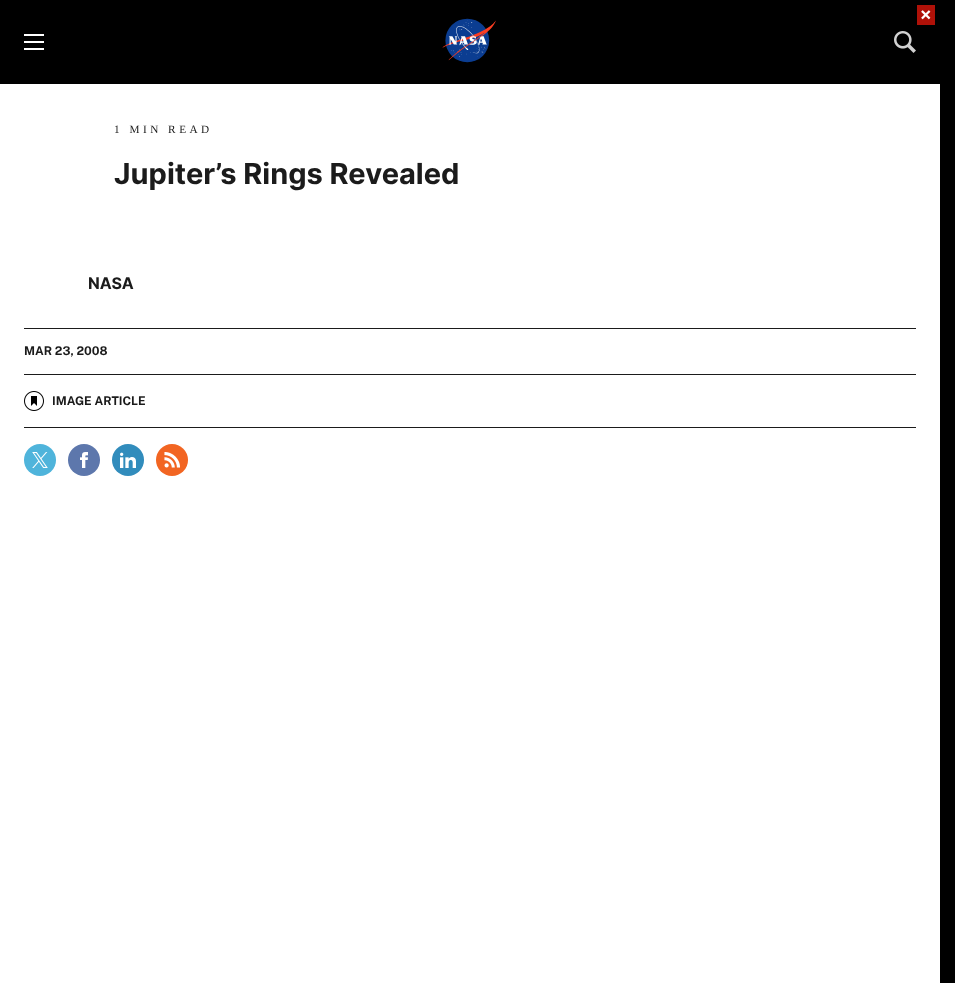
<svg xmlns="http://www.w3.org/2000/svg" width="955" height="983">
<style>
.a{font:bold 20px Public Sans;fill:#fff}
.b{font:11.25px Liberation Serif;letter-spacing:3.5px;fill:#1b1b1b}
.c{font:bold 29px Inter;fill:#1b1b1b}
.d{font:bold 16px Inter;fill:#1b1b1b}
.e{font:bold 12px Public Sans;fill:#1b1b1b}
</style>
<rect width="100%" height="100%" fill="#000"/>
<path fill="#fff" d="M0 84h940v899H0z"/>
<path fill="#af1108" d="M917 5h18v20H917z"/>
<path fill="#fff" d="M24 34h20v2H24z"/>
<path fill="#fff" d="M24 41h20v2H24z"/>
<path fill="#fff" d="M24 48h20v2H24z"/>
<image href="1.png" x="442" y="18" width="54" height="45"/>
<image href="2.png" x="894" y="31" width="22" height="22"/>
<path fill="#1b1b1b" d="M24 328h892v1H24z"/>
<path fill="#1b1b1b" d="M24 374h892v1H24z"/>
<path fill="#1b1b1b" d="M24 427h892v1H24z"/>
<image href="3.png" x="24" y="391" width="20" height="20"/>
<circle fill="#4fb4db" cx="40" cy="460" r="16"/>
<image href="4.png" x="32" y="452" width="16" height="16"/>
<circle fill="#5d77ac" cx="84" cy="460" r="16"/>
<image href="5.png" x="80" y="452" width="8" height="16"/>
<circle fill="#318cbc" cx="128" cy="460" r="16"/>
<image href="6.png" x="120" y="452" width="16" height="16"/>
<circle fill="#f26522" cx="172" cy="460" r="16"/>
<image href="7.png" x="164" y="452" width="16" height="16"/>
<text class="a" x="920" y="22">×</text>
<text class="b" x="114" y="133">1 MIN READ</text>
<text class="c" x="114" y="184">Jupiter’s Rings Revealed</text>
<text class="d" x="88" y="289">NASA</text>
<text class="e" x="24" y="355">MAR 23, 2008</text>
<text class="e" x="52" y="405">IMAGE ARTICLE</text>
</svg>
